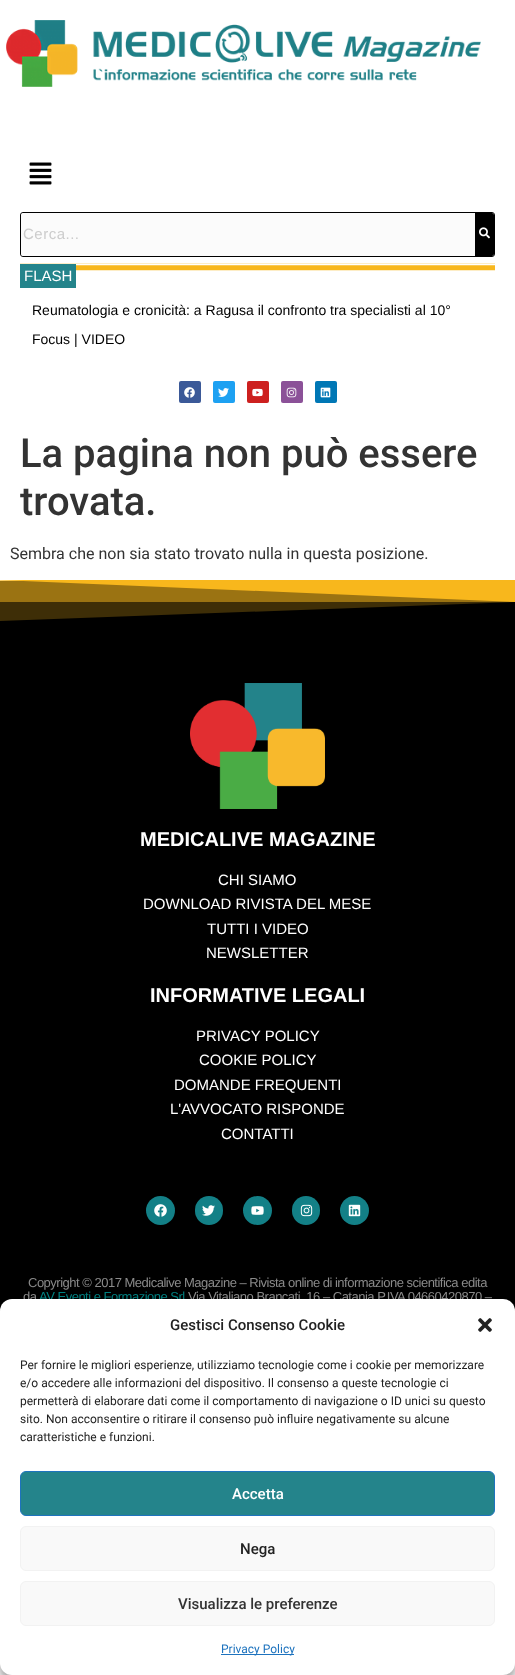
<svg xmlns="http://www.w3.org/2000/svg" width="515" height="1675">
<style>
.a{font:15px Liberation Sans;letter-spacing:0.5px;fill:#ccc}
.b{font:15px Liberation Sans;fill:#fff}
.c{font:14px Liberation Sans;fill:#000}
.d{font:500 40px Roboto;fill:#333}
.e{font:16px Roboto;fill:#333}
.f{font:bold 20px Liberation Sans;fill:#fff}
.g{font:13px Liberation Sans;letter-spacing:-0.5px;fill:#8a8a8a}
.h{font:13px Liberation Sans;letter-spacing:-0.5px;fill:#008080}
.i{font:500 15px Roboto;fill:#222}
.j{font:12px Roboto;fill:#222}
.k{font:500 15px Roboto;fill:#fff}
.l{font:500 15px Roboto;fill:#333}
.m{font:12px Roboto;fill:#1e73be}
</style>
<rect width="100%" height="100%" fill="#fff"/>
<path fill="#fcdb8e" d="M0 580h24v1H0z"/>
<image href="1.png" x="6" y="20" width="475" height="67"/>
<image href="2.png" x="29" y="162" width="23" height="23"/>
<rect fill="none" stroke="#000" x="20.5" y="212.5" width="474" height="44" rx="2.5"/>
<path fill="#f9f9f9ba" d="M23 213h452v43h-452c-1 0-2-1-2-2v-39c0-1 1-2 2-2z"/>
<path fill="#000" d="M475 213h17c1 0 2 1 2 2v39c0 1-1 2-2 2h-17z"/>
<image href="3.png" x="479" y="227" width="11" height="12"/>
<image href="4.png" x="20" y="263" width="475" height="8"/>
<path fill="#24848b" d="M20 264h56v24H20z"/>
<rect fill="#3b5998" x="179" y="381" width="22" height="22" rx="2"/>
<image href="5.png" x="184" y="387" width="11" height="11"/>
<rect fill="#1da1f2" x="213" y="381" width="22" height="22" rx="2"/>
<image href="6.png" x="218" y="388" width="11" height="9"/>
<rect fill="#cd201f" x="247" y="381" width="22" height="22" rx="2"/>
<image href="7.png" x="252" y="388" width="11" height="9"/>
<rect fill="#8b5198" x="281" y="381" width="22" height="22" rx="2"/>
<image href="8.png" x="286" y="387" width="11" height="11"/>
<rect fill="#0077b5" x="315" y="381" width="22" height="22" rx="2"/>
<image href="9.png" x="320" y="387" width="11" height="11"/>
<path fill="#000" d="M0 602h515v709H0z"/>
<path fill="#7c5c0f" d="M0 581h515v21H0z"/>
<path fill="#f8b71d" d="M0 580h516v22z"/>
<path fill="#f8b71d40" d="M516 580h-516v41l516-19z"/>
<image href="10.png" x="190" y="683" width="135" height="126"/>
<circle fill="#138087" cx="160.5" cy="1210.5" r="14.5"/>
<image href="11.png" x="154" y="1204" width="13" height="13"/>
<rect fill="#138087" x="195" y="1196" width="28" height="29" rx="14"/>
<image href="12.png" x="202" y="1205" width="13" height="11"/>
<circle fill="#138087" cx="257.5" cy="1210.5" r="14.5"/>
<image href="13.png" x="251" y="1206" width="13" height="9"/>
<rect fill="#138087" x="292" y="1196" width="28" height="29" rx="14"/>
<image href="14.png" x="300" y="1204" width="13" height="13"/>
<circle fill="#138087" cx="354.5" cy="1210.5" r="14.5"/>
<image href="15.png" x="348" y="1204" width="13" height="13"/>
<rect fill="#0000003b" filter="blur(3px)" y="1305" width="515" height="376" rx="12"/>
<rect fill="#00000030" filter="blur(10px)" y="1309" width="515" height="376" rx="12"/>
<text class="a" x="23" y="239">Cerca...</text>
<text class="b" x="24" y="281">FLASH</text>
<text class="c" x="32" y="315">Reumatologia e cronicità: a Ragusa il confronto tra specialisti al 10°</text>
<text class="c" x="32" y="344">Focus | VIDEO</text>
<text class="d" x="20" y="467">La pagina non può essere</text>
<text class="d" x="20" y="515">trovata.</text>
<text class="e" x="10" y="559">Sembra che non sia stato trovato nulla in questa posizione.</text>
<text class="f" x="140" y="846">MEDICALIVE MAGAZINE</text>
<text class="b" x="218" y="885">CHI SIAMO</text>
<text class="b" x="143" y="909">DOWNLOAD RIVISTA DEL MESE</text>
<text class="b" x="207" y="934">TUTTI I VIDEO</text>
<text class="b" x="206" y="958">NEWSLETTER</text>
<text class="f" x="150" y="1002">INFORMATIVE LEGALI</text>
<text class="b" x="196" y="1041">PRIVACY POLICY</text>
<text class="b" x="199" y="1065">COOKIE POLICY</text>
<text class="b" x="174" y="1090">DOMANDE FREQUENTI</text>
<text class="b" x="170" y="1114">L'AVVOCATO RISPONDE</text>
<text class="b" x="221" y="1139">CONTATTI</text>
<text class="g" x="28" y="1287">Copyright © 2017 Medicalive Magazine – Rivista online di informazione scientifica edita</text>
<text class="g" x="23" y="1301">da</text>
<text class="h" x="39" y="1301">AV Eventi e Formazione Srl</text>
<text class="g" x="188" y="1301">Via Vitaliano Brancati, 16 – Catania P.IVA 04660420870 –</text>
<rect fill="#fff" y="1299" width="515" height="376" rx="12"/>
<text class="i" x="170" y="1330">Gestisci Consenso Cookie</text>
<image href="16.png" x="478" y="1318" width="14" height="14"/>
<text class="j" x="20" y="1369">Per fornire le migliori esperienze, utilizziamo tecnologie come i cookie per memorizzare</text>
<text class="j" x="20" y="1387">e/o accedere alle informazioni del dispositivo. Il consenso a queste tecnologie ci</text>
<text class="j" x="20" y="1405">permetterà di elaborare dati come il comportamento di navigazione o ID unici su questo</text>
<text class="j" x="20" y="1423">sito. Non acconsentire o ritirare il consenso può influire negativamente su alcune</text>
<text class="j" x="20" y="1441">caratteristiche e funzioni.</text>
<rect fill="#24848b" stroke="#1e73be" x="20.5" y="1471.5" width="474" height="44" rx="5.5"/>
<text class="k" x="232" y="1499">Accetta</text>
<rect fill="#f9f9f9" stroke="#f2f2f2" x="20.5" y="1526.5" width="474" height="44" rx="5.5"/>
<text class="i" x="240" y="1554">Nega</text>
<rect fill="#f9f9f9" stroke="#f2f2f2" x="20.5" y="1581.5" width="474" height="44" rx="5.5"/>
<text class="l" x="178" y="1609">Visualizza le preferenze</text>
<path fill="#1e73be" d="M221 1654h73v1H221z"/>
<text class="m" x="221" y="1653">Privacy Policy</text>
</svg>
